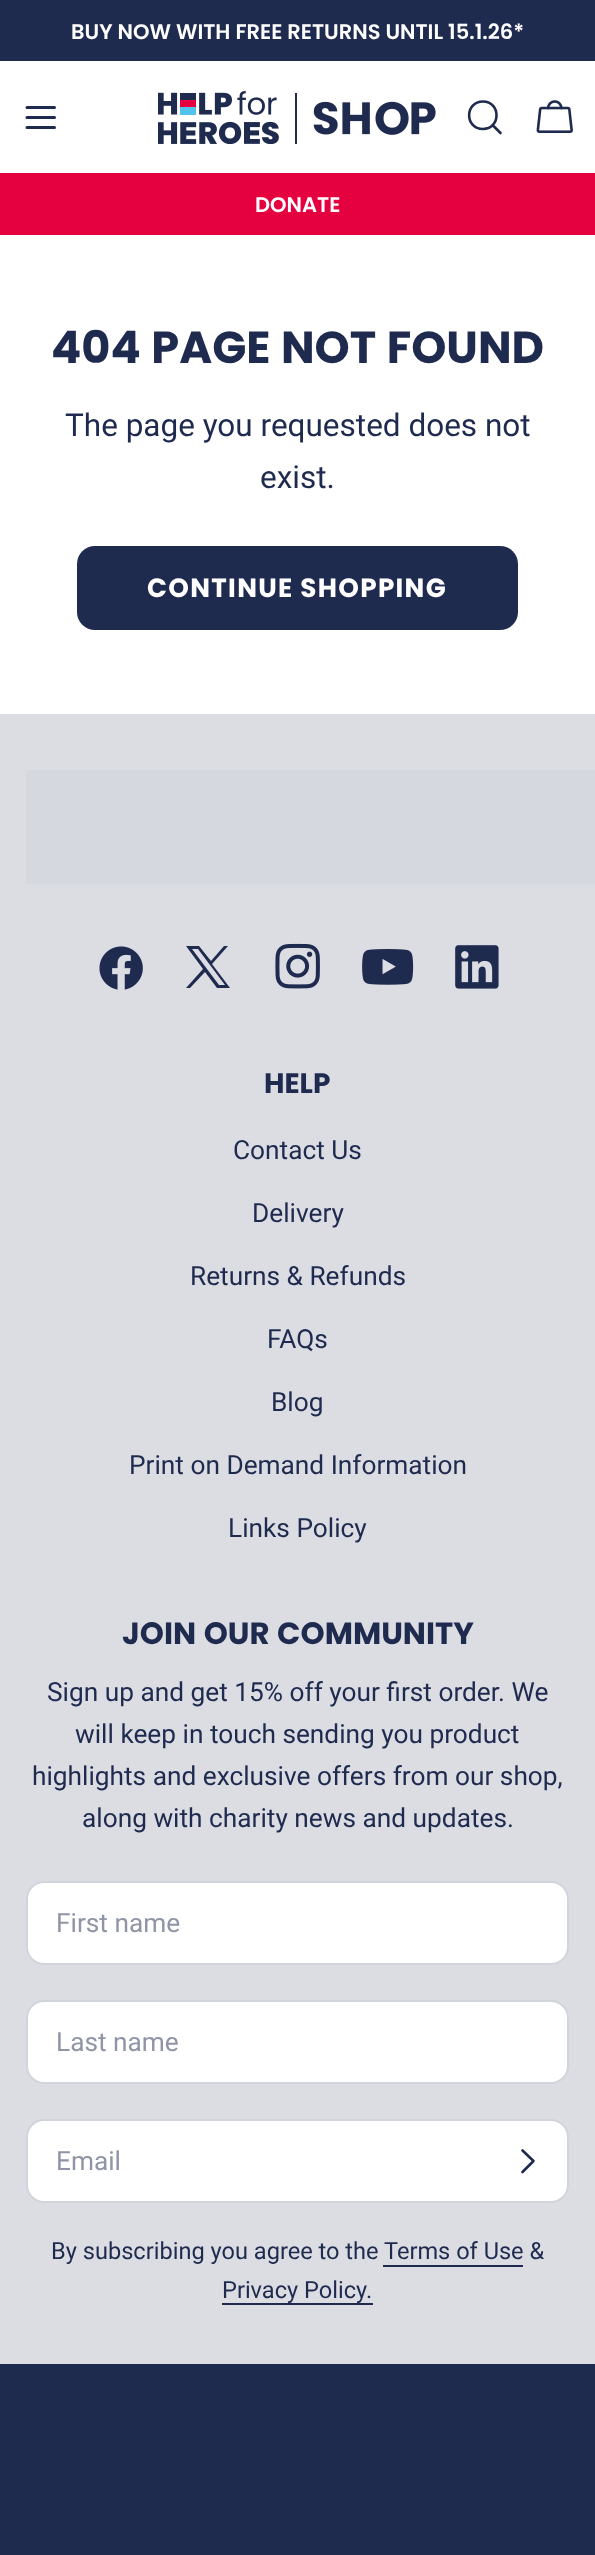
<svg xmlns="http://www.w3.org/2000/svg" width="595" height="2555">
<style>
.a{font:600 21px Poppins;fill:#fff}
.b{font:bold 44.75px Poppins;fill:#1f2a4f}
.c{font:31.5px Roboto;fill:#1f2a4f}
.d{font:bold 26.25px Poppins;letter-spacing:1.3px;fill:#fff}
.e{font:bold 28px Poppins;fill:#1f2a4f}
.f{font:26.25px Roboto;fill:#1f2a4f}
.g{font:bold 30.75px Poppins;fill:#1f2a4f}
.h{font:26.25px Roboto;fill:#8f95a7}
.i{font:23.6px Roboto;fill:#1f2a4f}
</style>
<rect width="100%" height="100%" fill="#fff"/>
<path fill="#1f2a4f" d="M0 0h595v61H0z"/>
<path fill="none" stroke="#1f2a4f" stroke-width="3" stroke-linecap="round" stroke-linejoin="round" d="M27 117.5h27.5m-27.5-10h27.5m-27.5 20h27.5"/>
<image href="1.png" x="158" y="91" width="278" height="53"/>
<path fill="none" stroke="#1f2a4f" stroke-width="2.6" stroke-linecap="round" stroke-linejoin="round" d="M483 129c18 0 18-27.5 0-27.5c-18.5 0-18.5 27.5 0 27.5zm9.5-4l8 8"/>
<image href="2.png" x="536" y="100" width="37" height="33"/>
<path fill="#e50040" d="M0 173h595v62H0z"/>
<rect fill="#1f2a4f" x="77" y="546" width="441" height="84" rx="18"/>
<path fill="#dbdde3" d="M0 714h595v1650H0z"/>
<path fill="#d5d8df" d="M26 770h569v114H26z"/>
<image href="3.png" x="99" y="946" width="44" height="44"/>
<path fill="#1f2a4f" d="M186 946l17 23l-17 19h4l15-16l12 16h13l-18-24l16-18h-4l-13 15l-12-15zm6 3h6l27 36h-6z"/>
<image href="4.png" x="275" y="943" width="45" height="46"/>
<image href="5.png" x="362" y="949" width="52" height="36"/>
<image href="6.png" x="455" y="945" width="44" height="44"/>
<rect fill="#fff" x="26" y="1881" width="543" height="84" rx="18"/>
<rect fill="none" stroke="#1f2a4f33" stroke-width="2" x="27" y="1882" width="541" height="82" rx="17"/>
<rect fill="#fff" x="26" y="2000" width="543" height="84" rx="18"/>
<rect fill="none" stroke="#1f2a4f33" stroke-width="2" x="27" y="2001" width="541" height="82" rx="17"/>
<rect fill="#fff" x="26" y="2119" width="543" height="84" rx="18"/>
<rect fill="none" stroke="#1f2a4f33" stroke-width="2" x="27" y="2120" width="541" height="82" rx="17"/>
<path fill="none" stroke="#1f2a4f" stroke-width="2.6" stroke-linecap="round" stroke-linejoin="round" d="M522.5 2150.5l11 10.5l-11 11"/>
<path fill="#1f2a4f" d="M383 2265h140v2H383z"/>
<path fill="#1f2a4f" d="M222 2303h151v2H222z"/>
<path fill="#1f2a4f" d="M0 2364h595v191H0z"/>
<text class="a" x="71" y="39">BUY NOW WITH FREE RETURNS UNTIL 15.1.26*</text>
<text class="a" x="255" y="212">DONATE</text>
<text class="b" x="51" y="363" word-spacing="1">404 PAGE NOT FOUND</text>
<text class="c" x="65" y="436">The page you requested does not</text>
<text class="c" x="260" y="488">exist.</text>
<text class="d" x="147" y="597">CONTINUE SHOPPING</text>
<text class="e" x="264" y="1093">HELP</text>
<text class="f" x="233" y="1159">Contact Us</text>
<text class="f" x="252" y="1222">Delivery</text>
<text class="f" x="190" y="1285">Returns &amp; Refunds</text>
<text class="f" x="267" y="1348">FAQs</text>
<text class="f" x="271" y="1411">Blog</text>
<text class="f" x="129" y="1474">Print on Demand Information</text>
<text class="f" x="228" y="1537">Links Policy</text>
<text class="g" x="122" y="1644" word-spacing="1">JOIN OUR COMMUNITY</text>
<text class="f" x="47" y="1701">Sign up and get 15% off your first order. We</text>
<text class="f" x="75" y="1743">will keep in touch sending you product</text>
<text class="f" x="32" y="1785">highlights and exclusive offers from our shop,</text>
<text class="f" x="82" y="1827">along with charity news and updates.</text>
<text class="h" x="56" y="1932">First name</text>
<text class="h" x="56" y="2051">Last name</text>
<text class="h" x="56" y="2170">Email</text>
<text class="i" x="51" y="2259">By subscribing you agree to the Terms of Use &amp;</text>
<text class="i" x="222" y="2298">Privacy Policy.</text>
</svg>
